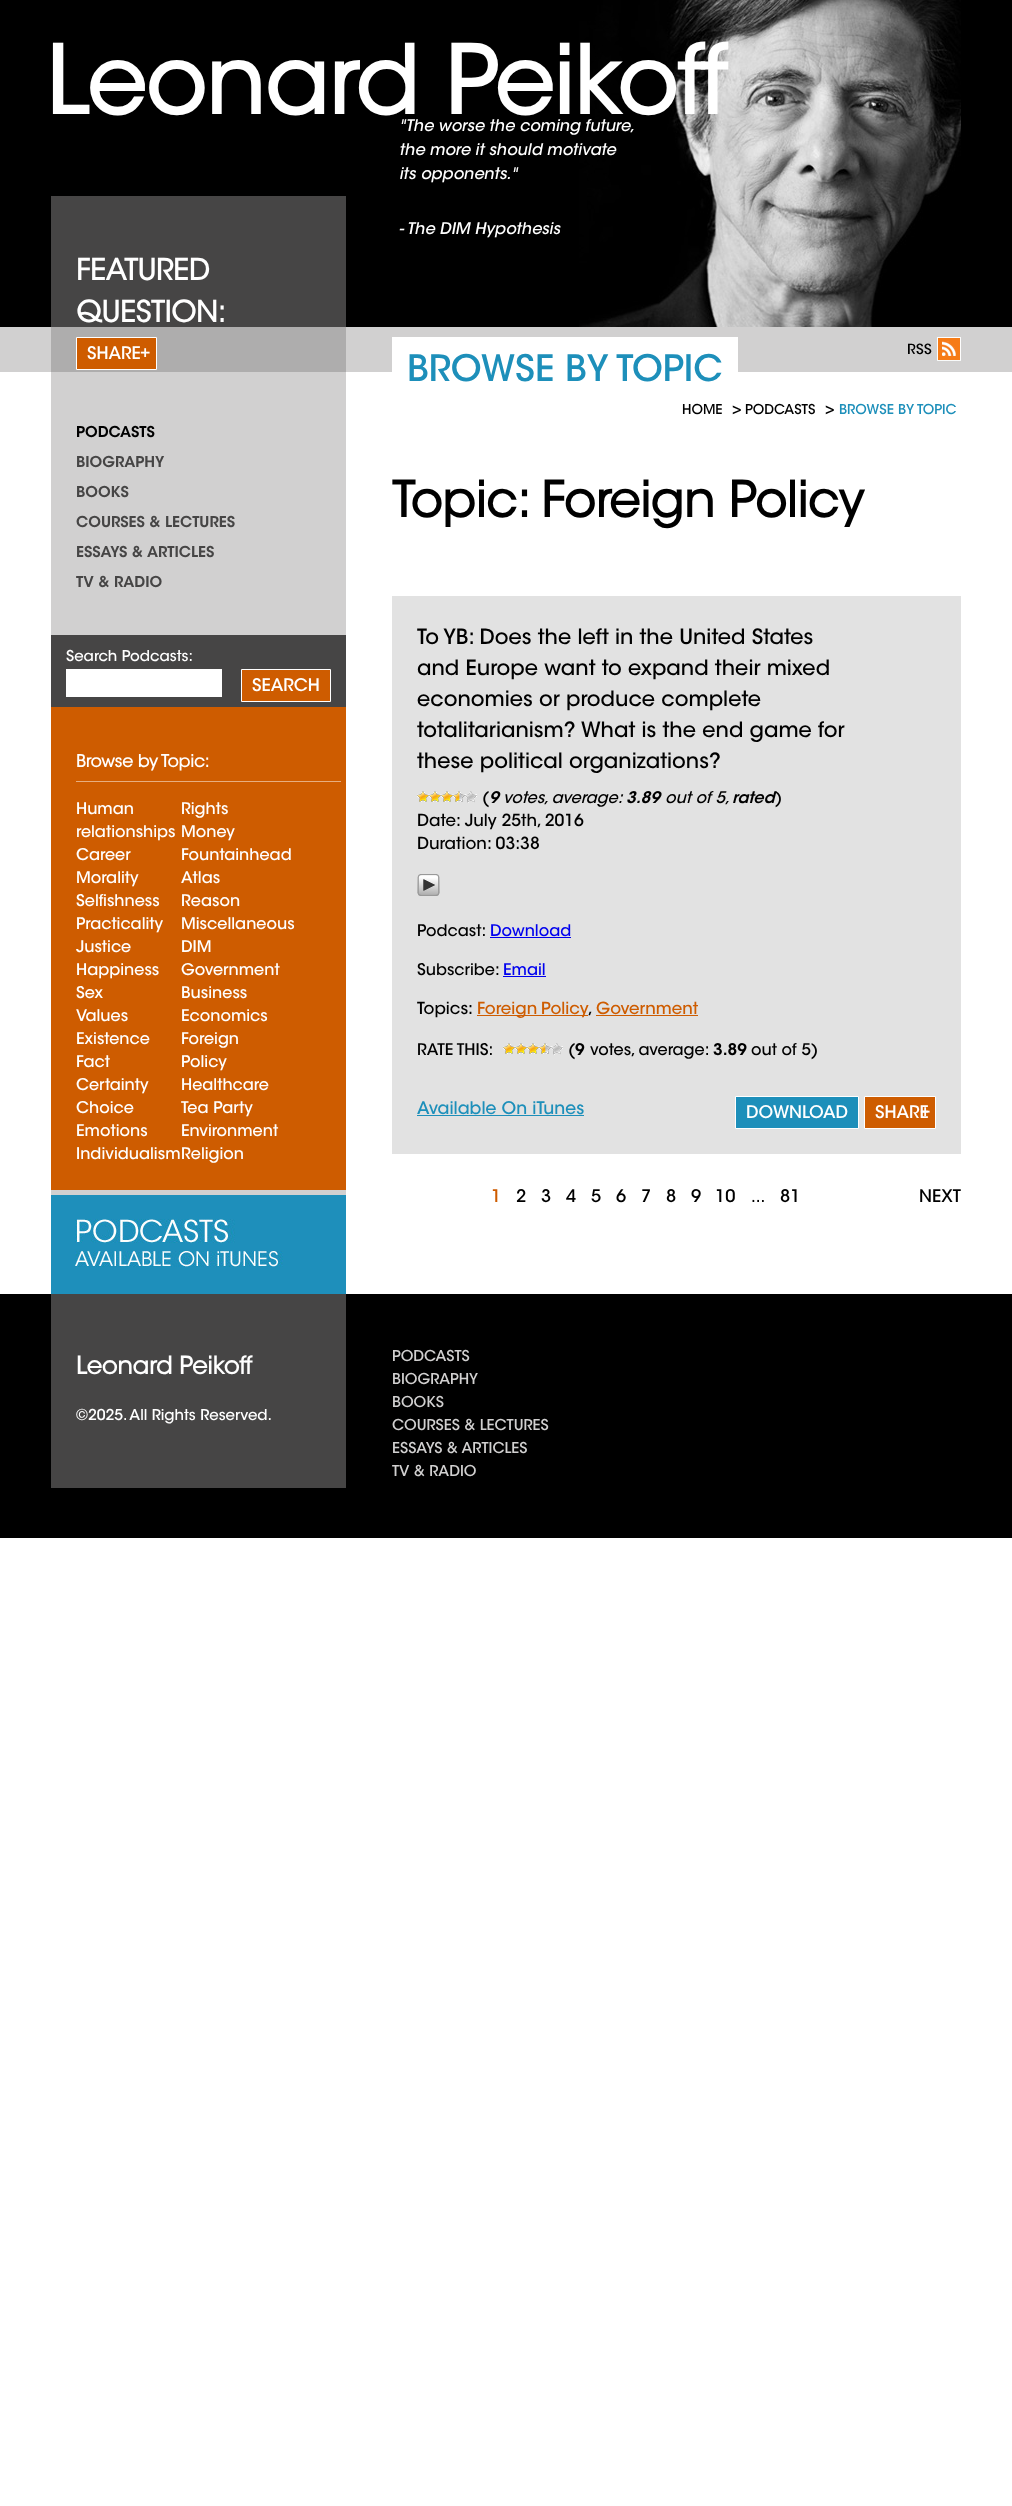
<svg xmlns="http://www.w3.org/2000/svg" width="1012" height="2506">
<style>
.a{font:bold 92.75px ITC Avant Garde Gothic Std;fill:#fff}
.b{font:italic 500 16px ITC Avant Garde Gothic Std;fill:#fff}
.c{font:bold 29px ITC Avant Garde Gothic Std;fill:#fff}
.d{font:500 17.25px ITC Avant Garde Gothic Std;fill:#fff}
.e{font:600 14.9px ITC Avant Garde Gothic Std;fill:#000}
.f{font:600 14.9px ITC Avant Garde Gothic Std;fill:#464545}
.g{font:500 14.9px ITC Avant Garde Gothic Std;fill:#fff}
.h{font:bold 17px ITC Avant Garde Gothic Std;fill:#fff}
.i{font:500 16px ITC Avant Garde Gothic Std;fill:#fff}
.j{font:500 36.25px ITC Avant Garde Gothic Std;fill:#1d8fba}
.k{font:500 13.5px ITC Avant Garde Gothic Std;fill:#000}
.l{font:500 16px ITC Avant Garde Gothic Std;fill:#000}
.m{font:500 13.5px ITC Avant Garde Gothic Std;fill:#1d8fba}
.n{font:bold 48.75px ITC Avant Garde Gothic Std;fill:#000}
.o{font:500 21px ITC Avant Garde Gothic Std;fill:#000}
.p{font:italic 600 16px ITC Avant Garde Gothic Std;fill:#000}
.q{font:italic 500 16px 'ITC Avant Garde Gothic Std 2';fill:#000}
.r{font:500 16.6px ITC Avant Garde Gothic Std;fill:#000}
.s{font:500 16px ITC Avant Garde Gothic Std;fill:#00e}
.t{font:500 16.6px ITC Avant Garde Gothic Std;fill:#ce5c00}
.u{font:600 16px ITC Avant Garde Gothic Std;fill:#000}
.v{font:500 17.25px ITC Avant Garde Gothic Std;fill:#1d8fba}
.w{font:500 17.25px ITC Avant Garde Gothic Std;fill:#ce5c00}
.x{font:500 17.25px ITC Avant Garde Gothic Std;fill:#000}
.y{font:bold 24px ITC Avant Garde Gothic Std;fill:#fff}
.z{font:500 14.9px ITC Avant Garde Gothic Std;fill:#d1d0d0}
</style>
<rect width="100%" height="100%" fill="#fff"/>
<path fill="#000" d="M0 0h1012v327H0z"/>
<image href="1.png" x="579" y="0" width="382" height="327"/>
<path fill="#464545" d="M51 196h295v131H51z"/>
<path fill="#d1d0d0" d="M0 327h1012v45H0z"/>
<path fill="#d1d0d0" d="M51 372h295v823H51z"/>
<path fill="#aeadad" d="M51 327h295v45H51z"/>
<path fill="#ce5c00" stroke="#fff" d="M76.5 337.5h80v32H76.5z"/>
<path fill="#464545" d="M51 635h295v72H51z"/>
<path fill="#fff" d="M66 669h156v28H66z"/>
<path fill="#ce5c00" stroke="#fff" d="M241.5 669.5h89v32H241.5z"/>
<path fill="#ce5c00" d="M51 707h295v483H51z"/>
<path fill="#e7ae80" d="M76 781h265v1H76z"/>
<image href="2.png" x="51" y="1195" width="295" height="99"/>
<image href="3.png" x="908" y="337" width="53" height="24"/>
<path fill="#fff" d="M392 337h346v35H392z"/>
<path fill="#e2e2e2" d="M392 596h569v558H392z"/>
<image href="4.png" x="417" y="791" width="12" height="11"/>
<image href="4.png" x="429" y="791" width="12" height="11"/>
<image href="4.png" x="441" y="791" width="12" height="11"/>
<image href="5.png" x="453" y="791" width="12" height="11"/>
<image href="6.png" x="465" y="791" width="12" height="12"/>
<image href="7.png" x="417" y="874" width="23" height="22"/>
<path fill="#00e" d="M490 937h81v1H490z"/>
<path fill="#00e" d="M503 976h43v1H503z"/>
<path fill="#ce5c00" d="M477 1015h111v1H477z"/>
<path fill="#ce5c00" d="M596 1015h102v1H596z"/>
<image href="4.png" x="503" y="1043" width="12" height="11"/>
<image href="4.png" x="515" y="1043" width="12" height="11"/>
<image href="4.png" x="527" y="1043" width="12" height="11"/>
<image href="5.png" x="539" y="1043" width="12" height="11"/>
<image href="6.png" x="551" y="1043" width="12" height="12"/>
<path fill="#1d8fba" d="M417 1115h167v1H417z"/>
<path fill="#1d8fba" stroke="#fff" d="M735.5 1096.5h123v32H735.5z"/>
<path fill="#ce5c00" stroke="#fff" d="M864.5 1096.5h71v32H864.5z"/>
<path fill="#000" d="M0 1294h1012v244H0z"/>
<path fill="#464545" d="M51 1294h295v194H51z"/>
<text class="a" x="46" y="114">Leonard Peikoff</text>
<text class="b" x="399" y="131">"The worse the coming future,</text>
<text class="b" x="399" y="155">the more it should motivate</text>
<text class="b" x="399" y="179">its opponents."</text>
<text class="b" x="399" y="234">- The DIM Hypothesis</text>
<text class="c" x="76" y="280">FEATURED</text>
<text class="c" x="76" y="322">QUESTION:</text>
<text class="d" x="87" y="359">SHARE</text>
<text class="d" x="140" y="357">+</text>
<text class="e" x="76" y="437">PODCASTS</text>
<text class="f" x="76" y="467">BIOGRAPHY</text>
<text class="f" x="76" y="497">BOOKS</text>
<text class="f" x="76" y="527">COURSES &amp; LECTURES</text>
<text class="f" x="76" y="557">ESSAYS &amp; ARTICLES</text>
<text class="f" x="76" y="587">TV &amp; RADIO</text>
<text class="g" x="66" y="661">Search Podcasts:</text>
<text class="d" x="252" y="691">SEARCH</text>
<text class="h" x="76" y="767">Browse by Topic:</text>
<text class="i" x="76" y="814">Human</text>
<text class="i" x="76" y="837">relationships</text>
<text class="i" x="76" y="860">Career</text>
<text class="i" x="76" y="883">Morality</text>
<text class="i" x="76" y="906">Selfishness</text>
<text class="i" x="76" y="929">Practicality</text>
<text class="i" x="76" y="952">Justice</text>
<text class="i" x="76" y="975">Happiness</text>
<text class="i" x="76" y="998">Sex</text>
<text class="i" x="76" y="1021">Values</text>
<text class="i" x="76" y="1044">Existence</text>
<text class="i" x="76" y="1067">Fact</text>
<text class="i" x="76" y="1090">Certainty</text>
<text class="i" x="76" y="1113">Choice</text>
<text class="i" x="76" y="1136">Emotions</text>
<text class="i" x="76" y="1159">Individualism</text>
<text class="i" x="181" y="814">Rights</text>
<text class="i" x="181" y="837">Money</text>
<text class="i" x="181" y="860">Fountainhead</text>
<text class="i" x="181" y="883">Atlas</text>
<text class="i" x="181" y="906">Reason</text>
<text class="i" x="181" y="929">Miscellaneous</text>
<text class="i" x="181" y="952">DIM</text>
<text class="i" x="181" y="975">Government</text>
<text class="i" x="181" y="998">Business</text>
<text class="i" x="181" y="1021">Economics</text>
<text class="i" x="181" y="1044">Foreign</text>
<text class="i" x="181" y="1067">Policy</text>
<text class="i" x="181" y="1090">Healthcare</text>
<text class="i" x="181" y="1113">Tea Party</text>
<text class="i" x="181" y="1136">Environment</text>
<text class="i" x="181" y="1159">Religion</text>
<text class="j" x="407" y="381">BROWSE BY TOPIC</text>
<text class="k" x="682" y="414">HOME</text>
<text class="l" x="732" y="414">&gt;</text>
<text class="k" x="745" y="414">PODCASTS</text>
<text class="l" x="825" y="414">&gt;</text>
<text class="m" x="839" y="414">BROWSE BY TOPIC</text>
<text class="n" x="392" y="517">Topic: Foreign Policy</text>
<text class="o" x="417" y="644">To YB: Does the left in the United States</text>
<text class="o" x="417" y="675">and Europe want to expand their mixed</text>
<text class="o" x="417" y="706">economies or produce complete</text>
<text class="o" x="417" y="737">totalitarianism? What is the end game for</text>
<text class="o" x="417" y="768">these political organizations?</text>
<text class="l" x="482" y="803">(</text>
<text class="p" x="489" y="803">9</text>
<text class="q" x="503" y="803">votes, average:</text>
<text class="p" x="626" y="803">3.89</text>
<text class="q" x="665" y="803">out of 5,</text>
<text class="p" x="732" y="803">rated</text>
<text class="l" x="775" y="803">)</text>
<text class="r" x="417" y="826">Date: July 25th, 2016</text>
<text class="r" x="417" y="849">Duration: 03:38</text>
<text class="l" x="417" y="936">Podcast:</text>
<text class="s" x="490" y="936">Download</text>
<text class="l" x="417" y="975">Subscribe:</text>
<text class="s" x="503" y="975">Email</text>
<text class="r" x="417" y="1014">Topics:</text>
<text class="t" x="477" y="1014" word-spacing="-1">Foreign Policy</text>
<text class="r" x="588" y="1014">,</text>
<text class="t" x="596" y="1014">Government</text>
<text class="l" x="417" y="1055">RATE THIS:</text>
<text class="l" x="568" y="1055">(</text>
<text class="u" x="575" y="1055">9</text>
<text class="l" x="590" y="1055">votes, average:</text>
<text class="u" x="713" y="1055">3.89</text>
<text class="l" x="751" y="1055">out of 5)</text>
<text class="v" x="417" y="1114">Available On iTunes</text>
<text class="d" x="746" y="1118">DOWNLOAD</text>
<text class="d" x="875" y="1118">SHARE</text>
<text class="d" x="920" y="1116">+</text>
<text class="w" x="491" y="1202">1</text>
<text class="x" x="516" y="1202">2</text>
<text class="x" x="541" y="1202">3</text>
<text class="x" x="566" y="1202">4</text>
<text class="x" x="591" y="1202">5</text>
<text class="x" x="616" y="1202">6</text>
<text class="x" x="641" y="1202">7</text>
<text class="x" x="666" y="1202">8</text>
<text class="x" x="691" y="1202">9</text>
<text class="x" x="715" y="1202">10</text>
<text class="l" x="751" y="1202">...</text>
<text class="x" x="780" y="1202">81</text>
<text class="x" x="919" y="1202">NEXT</text>
<text class="y" x="76" y="1374">Leonard Peikoff</text>
<text class="g" x="76" y="1420">©2025. All Rights Reserved.</text>
<text class="z" x="392" y="1361">PODCASTS</text>
<text class="z" x="392" y="1384">BIOGRAPHY</text>
<text class="z" x="392" y="1407">BOOKS</text>
<text class="z" x="392" y="1430">COURSES &amp; LECTURES</text>
<text class="z" x="392" y="1453">ESSAYS &amp; ARTICLES</text>
<text class="z" x="392" y="1476">TV &amp; RADIO</text>
</svg>
